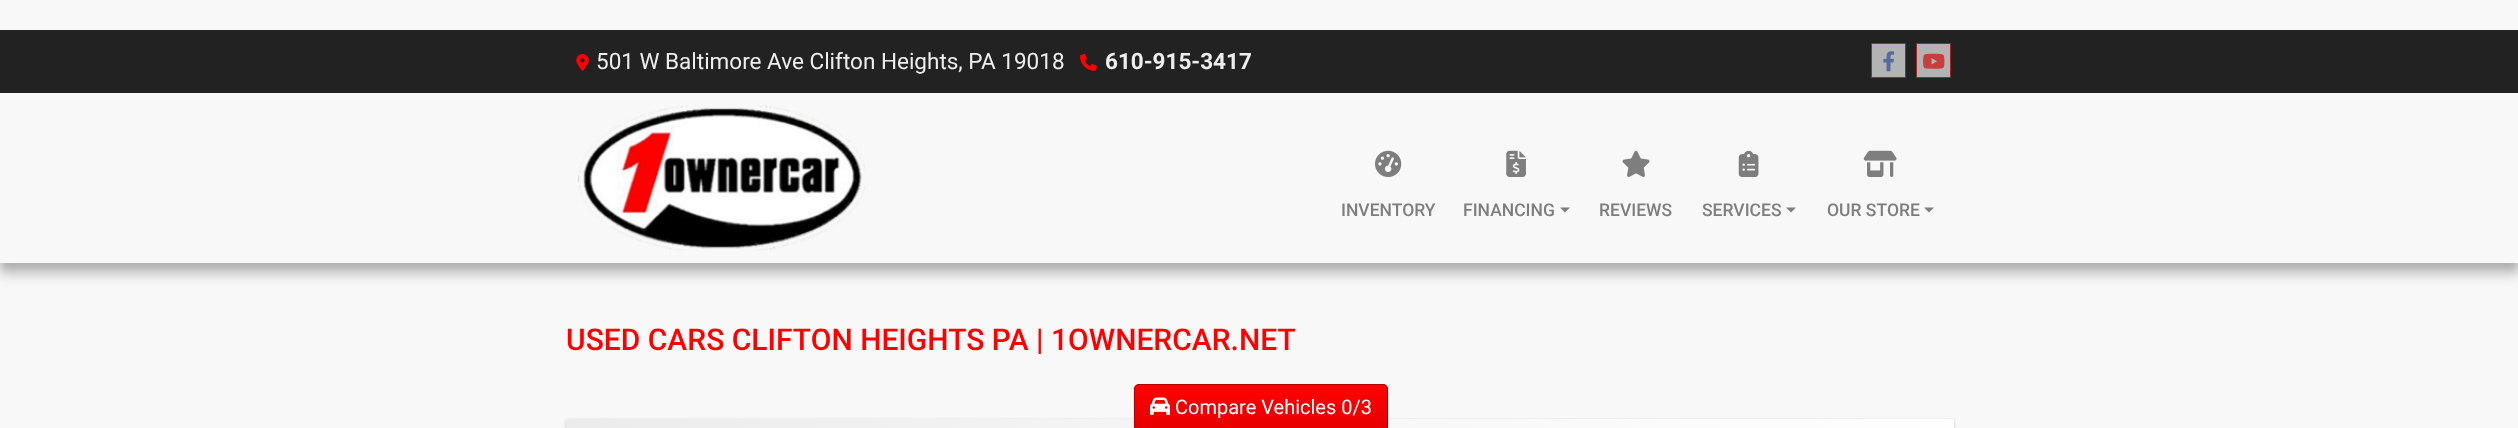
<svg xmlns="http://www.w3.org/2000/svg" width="2518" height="428">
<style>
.a{font:22.5px Roboto;fill:#eee}
.b{font:bold 22.5px Roboto;fill:#eee}
.c{font:500 17.5px Roboto;fill:#7e7e7e}
.d{font:500 30px Roboto;fill:#f00}
.e{font:20px Roboto;fill:#fff}
</style>
<defs>
<clipPath id="clip1"><path d="M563 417h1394v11h-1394zm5.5 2h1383c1.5 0 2.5 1 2.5 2.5v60c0 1.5-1 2.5-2.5 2.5h-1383c-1.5 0-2.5-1-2.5-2.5v-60c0-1.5 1-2.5 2.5-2.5z" clip-rule="evenodd"/></clipPath>
<clipPath id="clip2"><path d="M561 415h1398v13h-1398zm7.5 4h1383c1.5 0 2.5 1 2.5 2.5v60c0 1.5-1 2.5-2.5 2.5h-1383c-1.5 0-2.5-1-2.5-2.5v-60c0-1.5 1-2.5 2.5-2.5z" clip-rule="evenodd"/></clipPath>
<linearGradient id="g1" gradientUnits="userSpaceOnUse" x1="897" y1="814" x2="1623" y2="88"><stop offset="0" stop-color="#e6e6e6" stop-opacity="0.8"/><stop offset="1" stop-color="#fff" stop-opacity="0.6"/></linearGradient>
<linearGradient id="g2" gradientUnits="userSpaceOnUse" x1="1261" y1="385" x2="1261" y2="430"><stop offset="0" stop-color="#000" stop-opacity="0"/><stop offset="1" stop-color="#000" stop-opacity="0.1"/></linearGradient>
</defs>
<rect width="100%" height="100%" fill="#f8f8f8"/>
<path fill="#0000001a" filter="blur(3px)" d="M0 36h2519v233H0z"/>
<path fill="#00000033" filter="blur(6px)" d="M0 43h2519v232H0z"/>
<path fill="#f8f8f8" d="M0 93h2518v170H0z"/>
<path fill="#222" d="M0 30h2518v63H0z"/>
<image href="1.png" x="576" y="54" width="13" height="17"/>
<image href="2.png" x="1080" y="54" width="17" height="17"/>
<path fill="#cdcdcdd9" stroke="#364e80" d="M1871.5 43.5h34v34H1871.5z"/>
<image href="3.png" x="1883" y="51" width="12" height="21"/>
<path fill="#cdcdcdd9" stroke="#ab2020" d="M1916.5 43.5h34v34H1916.5z"/>
<image href="4.png" x="1923" y="53" width="22" height="16"/>
<image href="5.png" x="577" y="105" width="288" height="146"/>
<image href="6.png" x="1375" y="150" width="27" height="27"/>
<image href="7.png" x="1506" y="150" width="20" height="27"/>
<path fill="#7e7e7e" d="M1560 207.5h10l-5 5z"/>
<image href="8.png" x="1622" y="150" width="28" height="27"/>
<image href="9.png" x="1738" y="150" width="21" height="27"/>
<path fill="#7e7e7e" d="M1786 207.5h10l-5 5z"/>
<image href="10.png" x="1863" y="150" width="34" height="27"/>
<path fill="#7e7e7e" d="M1924 207.5h10l-5 5z"/>
<g clip-path="url(#clip1)">
<rect fill="#00000033" filter="blur(0.5px)" x="566" y="420" width="1388" height="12" rx="2.5"/>
</g>
<g clip-path="url(#clip2)">
<rect fill="#0000001a" filter="blur(1px)" x="565" y="419" width="1390" height="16" rx="4"/>
</g>
<rect fill="#ffffff99" x="566" y="419" width="1388" height="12" rx="2.5"/>
<rect fill="url(#g1)" x="566" y="419" width="1388" height="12" rx="2.5"/>
<rect fill="#f00" x="1134" y="384" width="254" height="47" rx="5"/>
<path fill="url(#g2)" d="M1134 395h254v33H1134z"/>
<rect fill="none" stroke="#b30000" x="1134.5" y="384.5" width="253" height="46" rx="4.5"/>
<image href="11.png" x="1150" y="397" width="20" height="18"/>
<text class="a" x="596" y="69">501 W Baltimore Ave Clifton Heights, PA 19018</text>
<text class="b" x="1105" y="69">610-915-3417</text>
<text class="c" x="1341" y="216">INVENTORY</text>
<text class="c" x="1463" y="216">FINANCING</text>
<text class="c" x="1599" y="216">REVIEWS</text>
<text class="c" x="1702" y="216">SERVICES</text>
<text class="c" x="1827" y="216">OUR STORE</text>
<text class="d" x="566" y="350">USED CARS CLIFTON HEIGHTS PA | 1OWNERCAR.NET</text>
<text class="e" x="1175" y="414">Compare Vehicles 0/3</text>
</svg>
